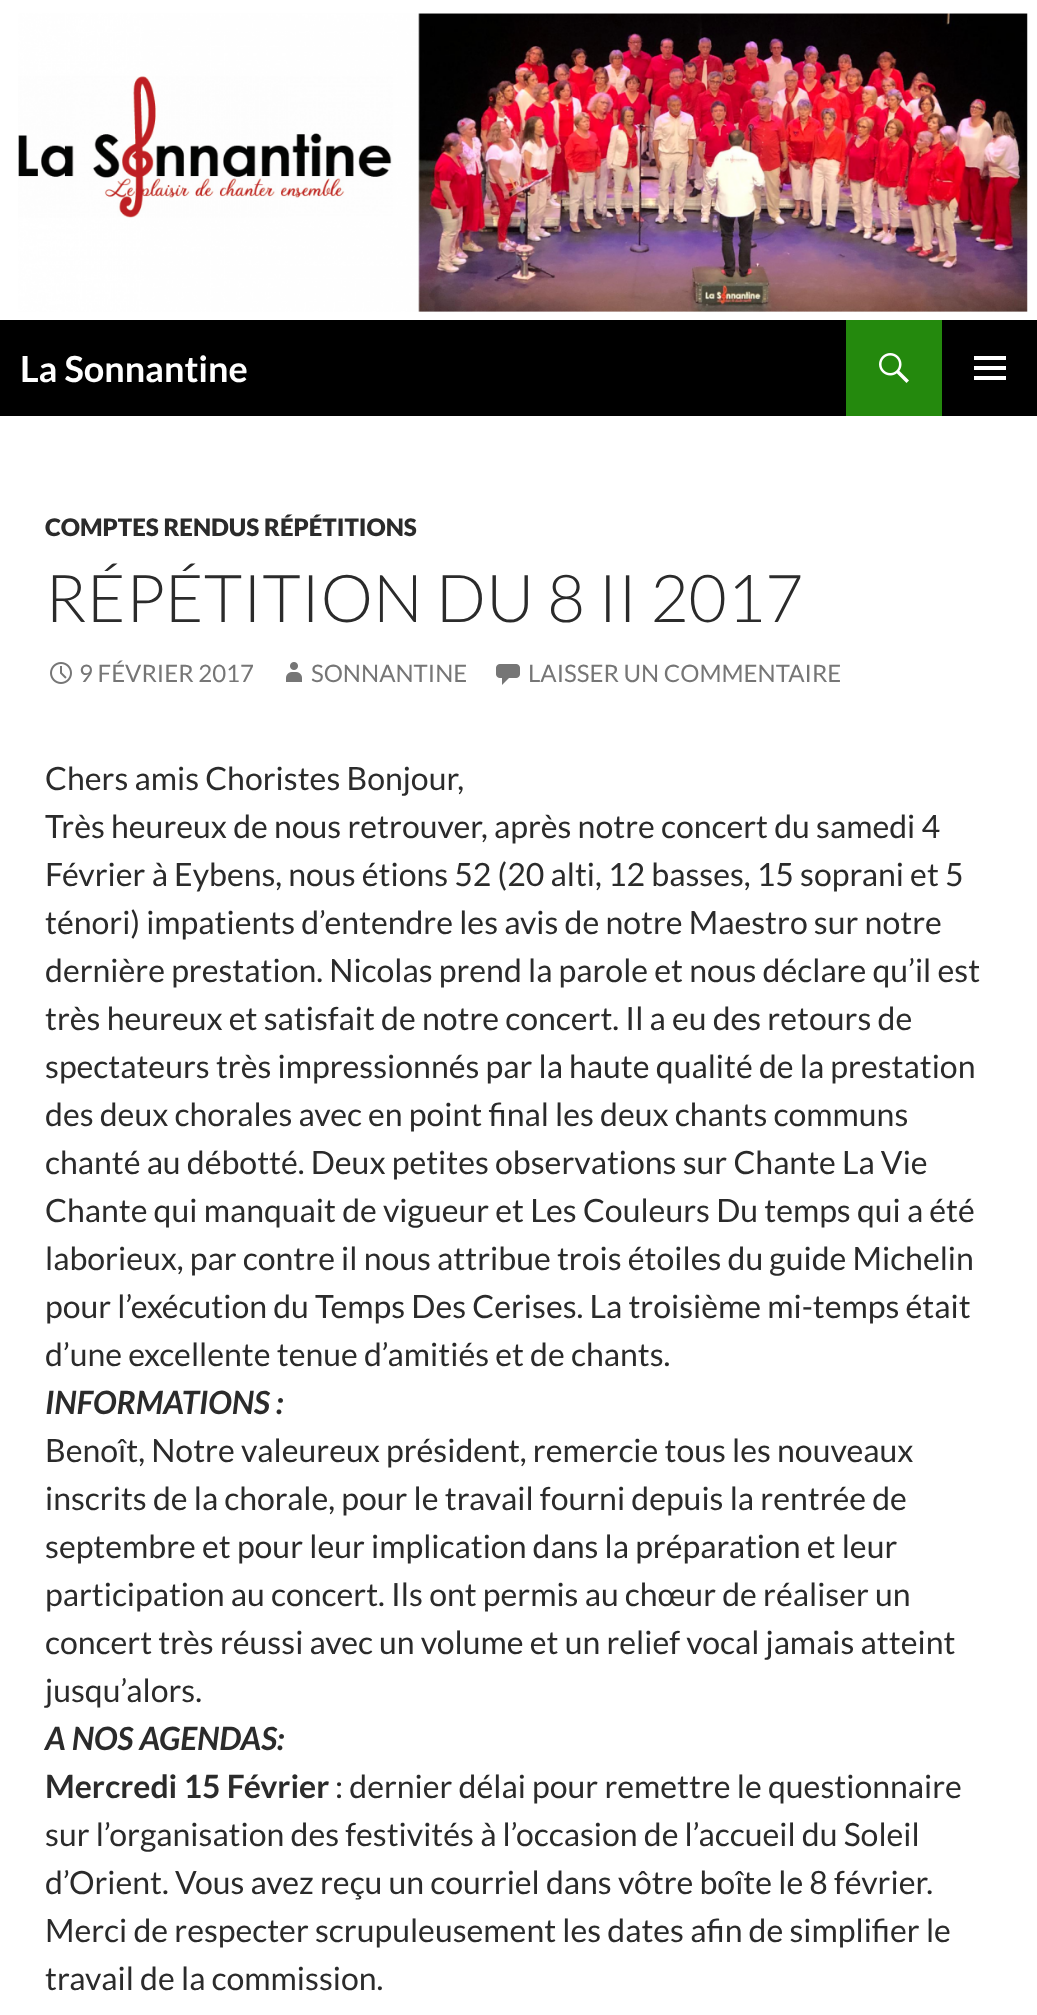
<svg xmlns="http://www.w3.org/2000/svg" width="1037" height="2015">
<style>
.a{font:bold 36px Lato;fill:#fff}
.b{font:900 24px Lato;fill:#2b2b2b}
.c{font:300 66px Lato;fill:#2b2b2b}
.d{font:24px Lato;fill:#767676}
.e{font:32px Lato;fill:#2b2b2b}
.f{font:italic bold 32px Lato;fill:#2b2b2b}
.g{font:bold 32px Lato;fill:#2b2b2b}
</style>
<rect width="100%" height="100%" fill="#fff"/>
<image href="1.png" x="18" y="13" width="1010" height="299"/>
<path fill="#000" d="M0 320h1037v96H0z"/>
<path fill="#24890d" d="M846 320h96v96H846z"/>
<image href="2.png" x="879" y="353" width="30" height="30"/>
<image href="3.png" x="974" y="356" width="32" height="24"/>
<image href="4.png" x="50" y="662" width="22" height="22"/>
<image href="5.png" x="286" y="662" width="16" height="20"/>
<image href="6.png" x="496" y="664" width="24" height="21"/>
<text class="a" x="20" y="382">La Sonnantine</text>
<text class="b" x="45" y="536">COMPTES RENDUS RÉPÉTITIONS</text>
<text class="c" x="45" y="622">RÉPÉTITION DU 8 II 2017</text>
<text class="d" x="79" y="682">9 FÉVRIER 2017</text>
<text class="d" x="311" y="682">SONNANTINE</text>
<text class="d" x="528" y="682">LAISSER UN COMMENTAIRE</text>
<text class="e" x="45" y="790">Chers amis Choristes Bonjour,</text>
<text class="e" x="45" y="838">Très heureux de nous retrouver, après notre concert du samedi 4</text>
<text class="e" x="45" y="886">Février à Eybens, nous étions 52 (20 alti, 12 basses, 15 soprani et 5</text>
<text class="e" x="45" y="934">ténori) impatients d’entendre les avis de notre Maestro sur notre</text>
<text class="e" x="45" y="982">dernière prestation. Nicolas prend la parole et nous déclare qu’il est</text>
<text class="e" x="45" y="1030">très heureux et satisfait de notre concert. Il a eu des retours de</text>
<text class="e" x="45" y="1078">spectateurs très impressionnés par la haute qualité de la prestation</text>
<text class="e" x="45" y="1126">des deux chorales avec en point final les deux chants communs</text>
<text class="e" x="45" y="1174">chanté au débotté. Deux petites observations sur Chante La Vie</text>
<text class="e" x="45" y="1222">Chante qui manquait de vigueur et Les Couleurs Du temps qui a été</text>
<text class="e" x="45" y="1270">laborieux, par contre il nous attribue trois étoiles du guide Michelin</text>
<text class="e" x="45" y="1318">pour l’exécution du Temps Des Cerises. La troisième mi-temps était</text>
<text class="e" x="45" y="1366">d’une excellente tenue d’amitiés et de chants.</text>
<text class="f" x="45" y="1414">INFORMATIONS :</text>
<text class="e" x="45" y="1462">Benoît, Notre valeureux président, remercie tous les nouveaux</text>
<text class="e" x="45" y="1510">inscrits de la chorale, pour le travail fourni depuis la rentrée de</text>
<text class="e" x="45" y="1558">septembre et pour leur implication dans la préparation et leur</text>
<text class="e" x="45" y="1606">participation au concert. Ils ont permis au chœur de réaliser un</text>
<text class="e" x="45" y="1654">concert très réussi avec un volume et un relief vocal jamais atteint</text>
<text class="e" x="45" y="1702">jusqu’alors.</text>
<text class="f" x="45" y="1750">A NOS AGENDAS:</text>
<text class="g" x="45" y="1798">Mercredi 15 Février</text>
<text class="e" x="335" y="1798">: dernier délai pour remettre le questionnaire</text>
<text class="e" x="45" y="1846">sur l’organisation des festivités à l’occasion de l’accueil du Soleil</text>
<text class="e" x="45" y="1894">d’Orient. Vous avez reçu un courriel dans vôtre boîte le 8 février.</text>
<text class="e" x="45" y="1942">Merci de respecter scrupuleusement les dates afin de simplifier le</text>
<text class="e" x="45" y="1990">travail de la commission.</text>
</svg>
